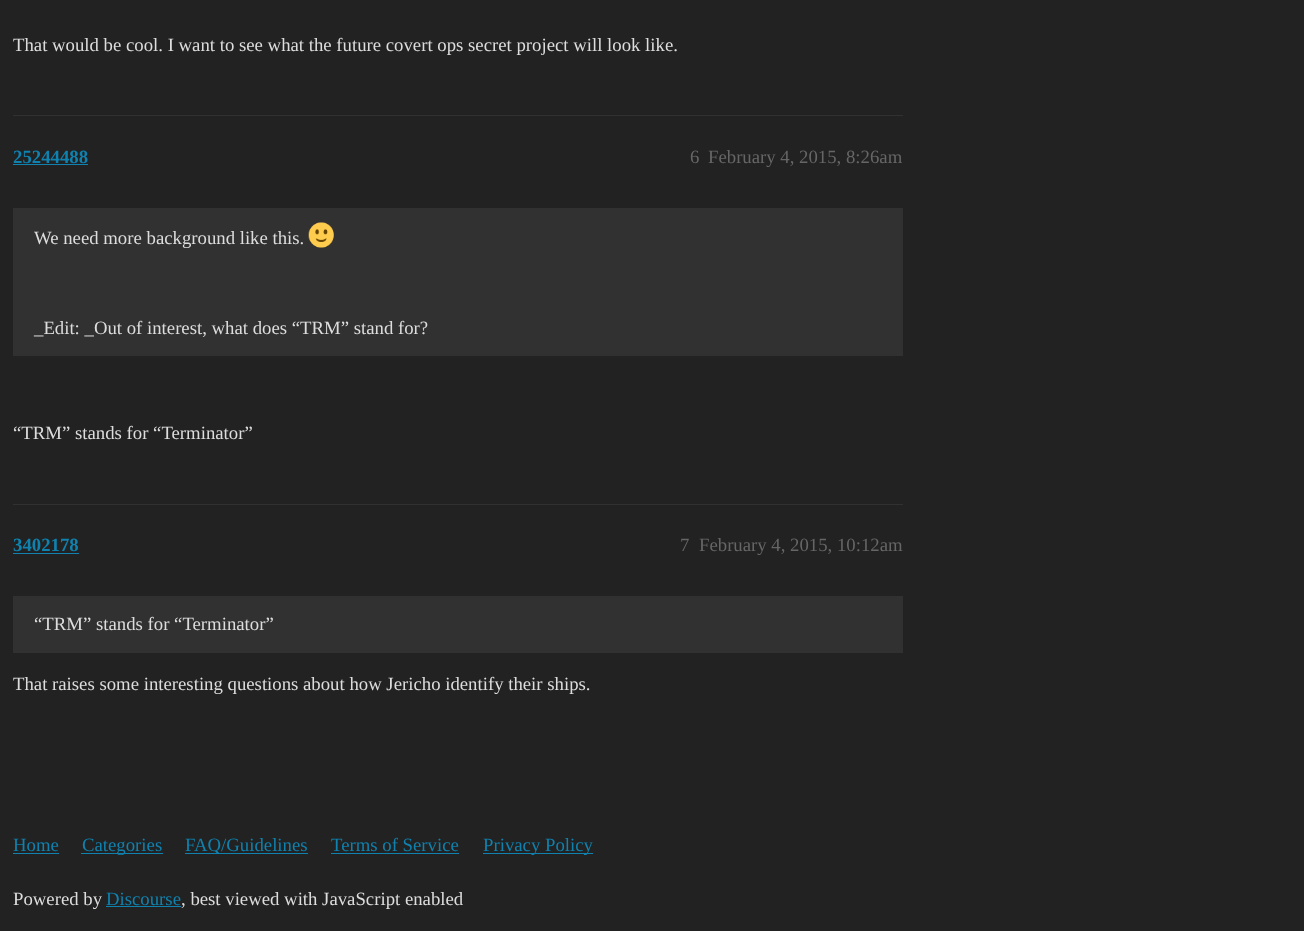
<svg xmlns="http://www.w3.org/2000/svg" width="1304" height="931">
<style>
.a{font:18.75px Liberation Serif;fill:#ddd}
.b{font:bold 18.75px Liberation Serif;fill:#0f82af}
.c{font:18.75px Liberation Serif;fill:#666}
.d{font:18.75px Liberation Serif;fill:#0f82af}
</style>
<defs>
<clipPath id="clip1"><path d="M13 0h890v78H13z"/></clipPath>
<clipPath id="clip2"><path d="M13 578h890v138H13z"/></clipPath>
</defs>
<rect width="100%" height="100%" fill="#222"/>
<path fill="#313131" d="M13 115h890v1H13z"/>
<path fill="#0f82af" d="M13 164h75v1H13z"/>
<path fill="#313131" d="M13 208h890v148H13z"/>
<image href="1.png" x="308" y="222" width="26" height="26"/>
<path fill="#313131" d="M13 504h890v1H13z"/>
<path fill="#0f82af" d="M13 553h66v1H13z"/>
<path fill="#313131" d="M13 596h890v57H13z"/>
<path fill="#0f82af" d="M13 853h46v1H13z"/>
<path fill="#0f82af" d="M81 853h82v1H81z"/>
<path fill="#0f82af" d="M185 853h123v1H185z"/>
<path fill="#0f82af" d="M331 853h128v1H331z"/>
<path fill="#0f82af" d="M483 853h110v1H483z"/>
<path fill="#0f82af" d="M106 906h75v1H106z"/>
<g clip-path="url(#clip1)">
<text class="a" x="13" y="51">That would be cool. I want to see what the future covert ops secret project will look like.</text>
</g>
<text class="b" x="13" y="163">25244488</text>
<text class="c" x="690" y="163">6</text>
<text class="c" x="708" y="163">February 4, 2015, 8:26am</text>
<text class="a" x="34" y="244">We need more background like this.</text>
<text class="a" x="34" y="334">_Edit: _Out of interest, what does “TRM” stand for?</text>
<text class="a" x="13" y="439">“TRM” stands for “Terminator”</text>
<text class="b" x="13" y="551">3402178</text>
<text class="c" x="680" y="551">7</text>
<text class="c" x="699" y="551">February 4, 2015, 10:12am</text>
<text class="a" x="34" y="630">“TRM” stands for “Terminator”</text>
<g clip-path="url(#clip2)">
<text class="a" x="13" y="690">That raises some interesting questions about how Jericho identify their ships.</text>
</g>
<text class="d" x="13" y="851">Home</text>
<text class="d" x="82" y="851">Categories</text>
<text class="d" x="185" y="851">FAQ/Guidelines</text>
<text class="d" x="331" y="851">Terms of Service</text>
<text class="d" x="483" y="851">Privacy Policy</text>
<text class="a" x="13" y="905">Powered by</text>
<text class="d" x="106" y="905">Discourse</text>
<text class="a" x="181" y="905">, best viewed with JavaScript enabled</text>
</svg>
